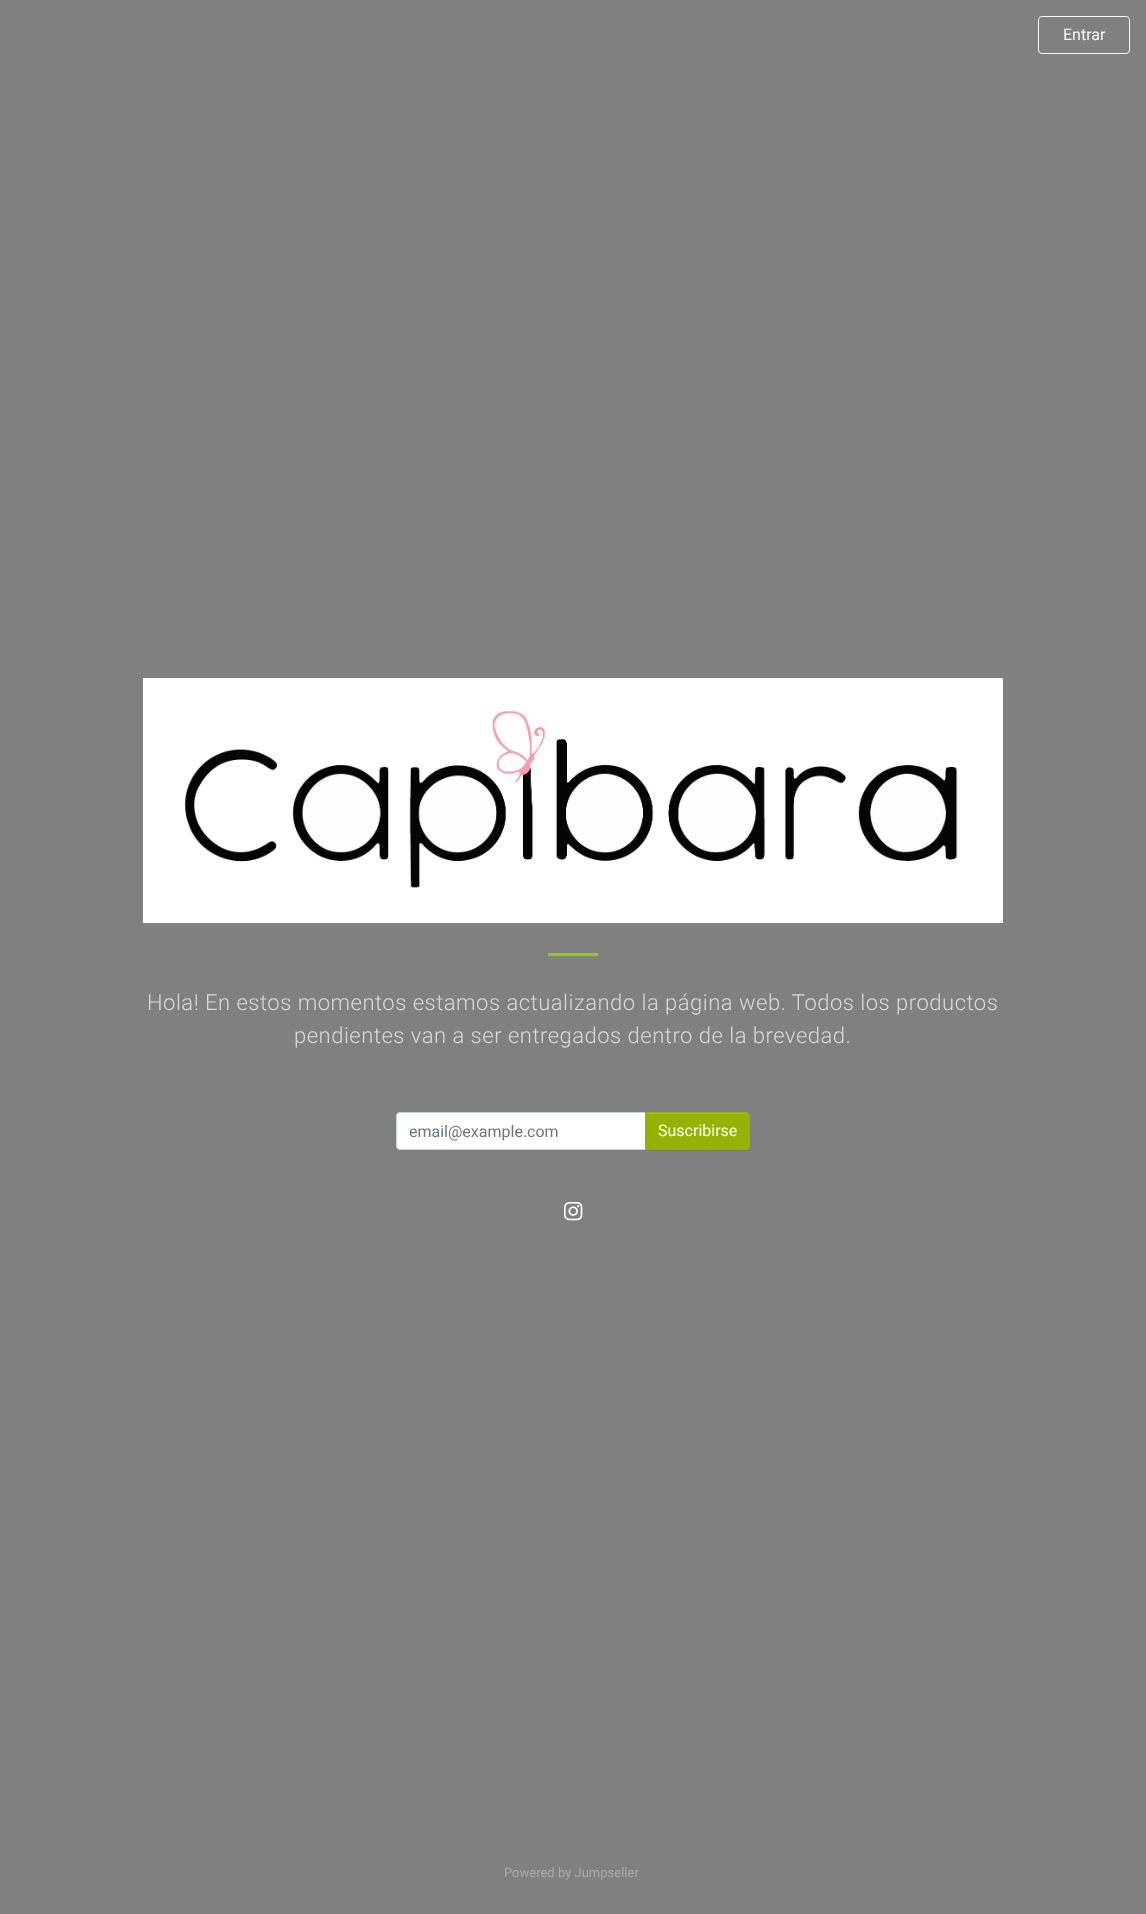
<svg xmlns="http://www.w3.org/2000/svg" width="1146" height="1914">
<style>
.a{font:16px Roboto;fill:#f8f9fa}
.b{font:300 22px Roboto;letter-spacing:0.5px;fill:#d9d9d9}
.c{font:16px Roboto;fill:#6c757d}
.d{font:16px Roboto;fill:#fff}
.e{font:13px Roboto;fill:#aaa}
</style>
<rect width="100%" height="100%" fill="#808080"/>
<rect fill="none" stroke="#f8f9fa" x="1038.5" y="16.5" width="91" height="37" rx="3.5"/>
<image href="1.png" x="143" y="678" width="860" height="245"/>
<path fill="#9c0" d="M548 953h50v3H548z"/>
<path fill="#fff" stroke="#ced4da" d="M400 1112.5h245.5v37h-245.5c-2 0-3.5-1.5-3.5-3.5v-30c0-2 1.5-3.5 3.5-3.5z"/>
<rect fill="#00000012" filter="blur(0.5px)" x="645" y="1113" width="105" height="38" rx="4"/>
<path fill="#95b200" d="M645 1112h101c2 0 4 2 4 4v30c0 2-2 4-4 4h-101z"/>
<path fill="#a5be26" d="M646 1114h100c2 0 3 1 3 3v-1c0-2-1-3-3-3h-100z"/>
<path fill="none" stroke="#95b200" d="M645.5 1112.5h100.5c2 0 3.5 1.5 3.5 3.5v30c0 2-1.5 3.5-3.5 3.5h-100.5z"/>
<image href="2.png" x="564" y="1201" width="19" height="20"/>
<text class="a" x="1063" y="40">Entrar</text>
<text class="b" x="147" y="1010">Hola! En estos momentos estamos actualizando la página web. Todos los productos</text>
<text class="b" x="294" y="1043">pendientes van a ser entregados dentro de la brevedad.</text>
<text class="c" x="409" y="1137">email@example.com</text>
<text class="d" x="658" y="1136">Suscribirse</text>
<text class="e" x="504" y="1877">Powered by Jumpseller</text>
</svg>
